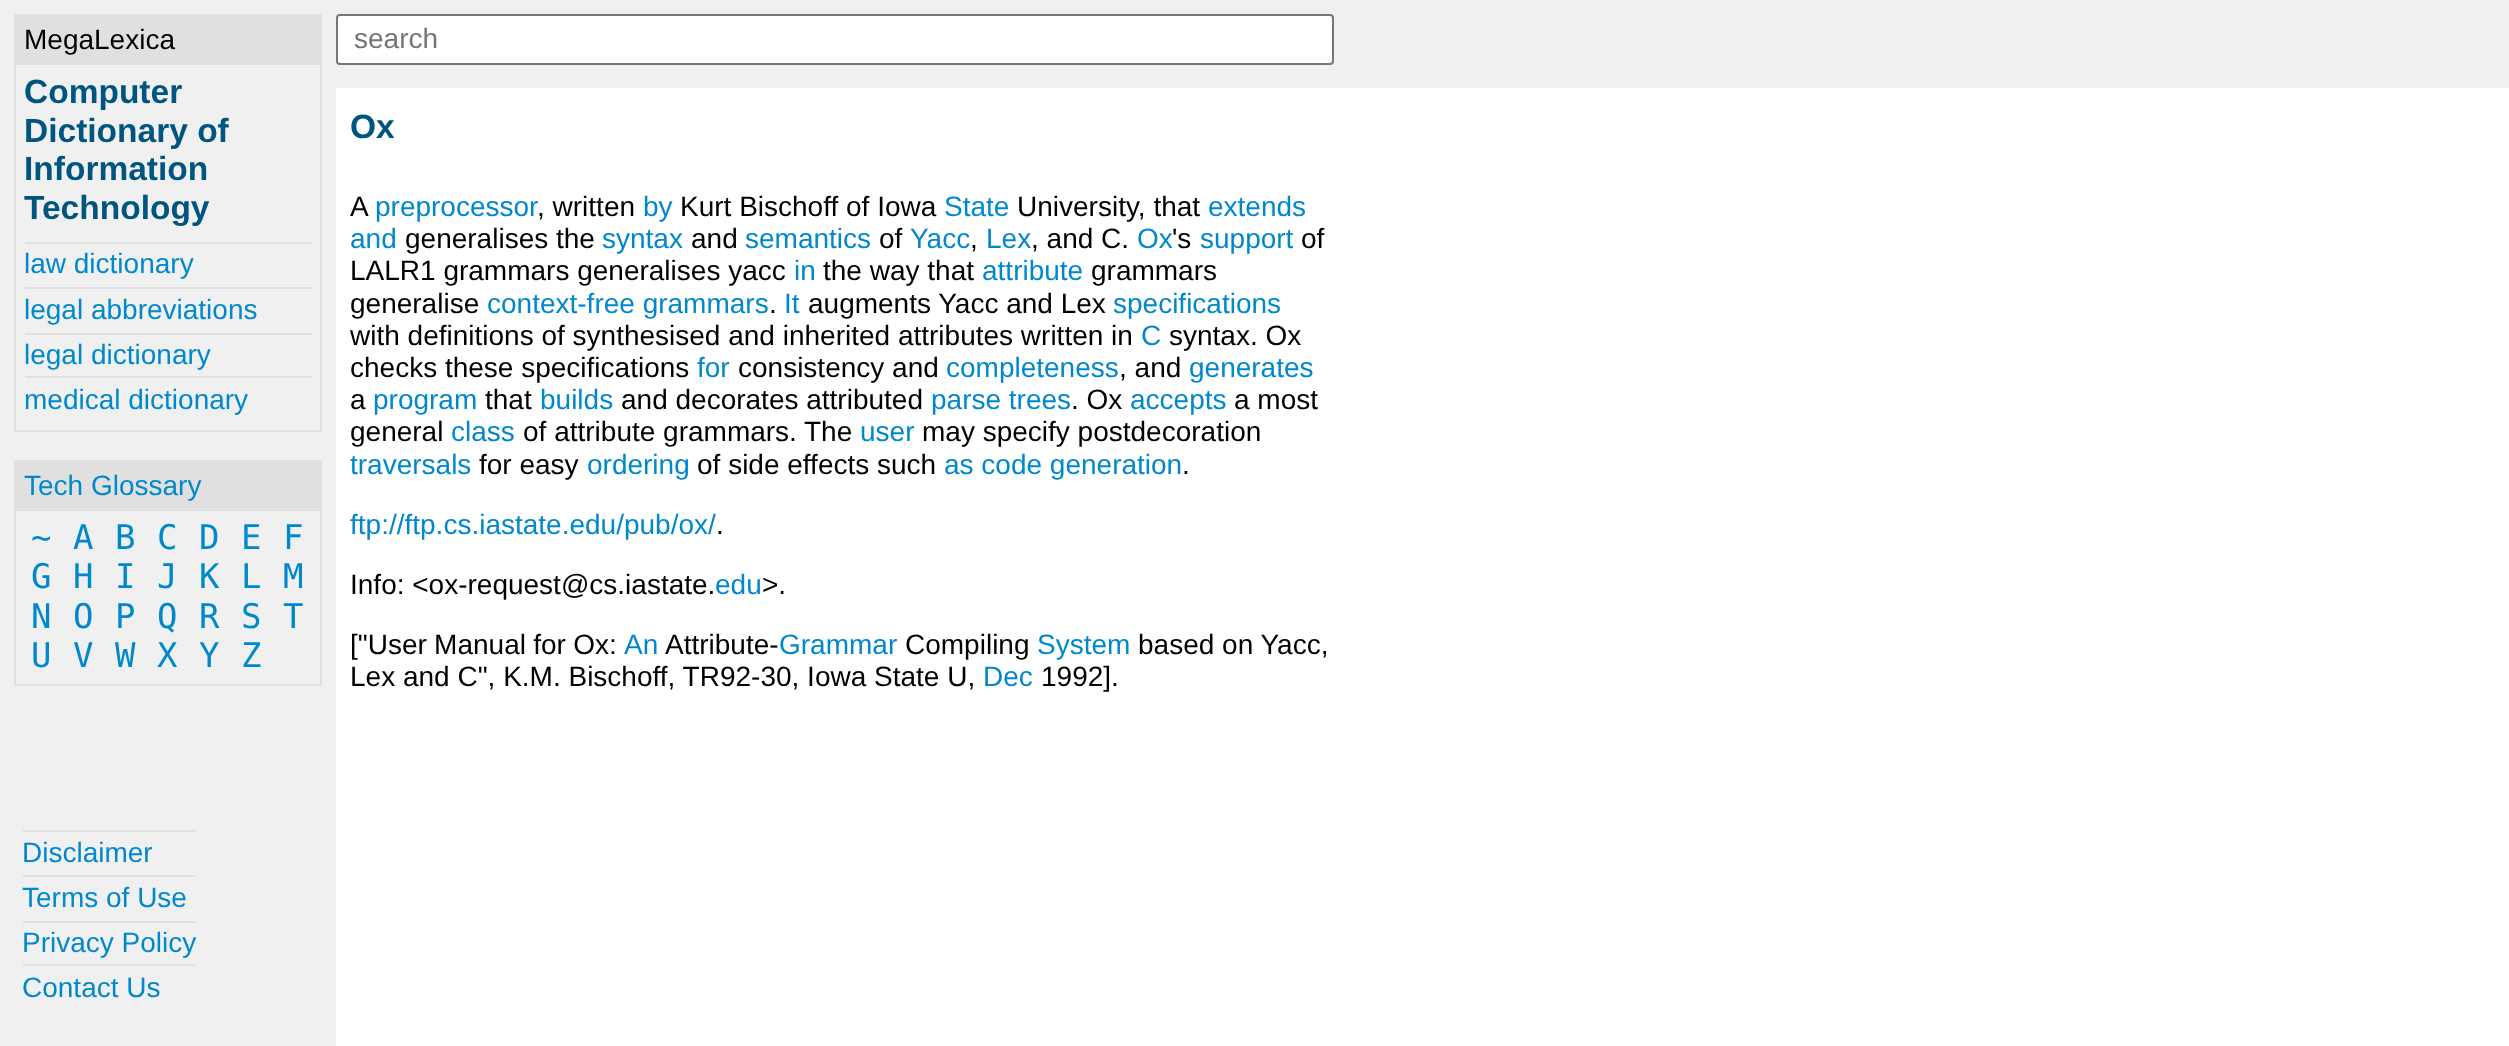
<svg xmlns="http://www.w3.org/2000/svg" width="2509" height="1046">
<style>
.a{font:28px Liberation Sans;fill:#000}
.b{font:bold 33.5px Liberation Sans;fill:#005580}
.c{font:28px Liberation Sans;fill:#08c}
.d{font:34px DejaVu Sans Mono;fill:#08c}
.e{font:28px Liberation Sans;fill:#757575}
</style>
<rect width="100%" height="100%" fill="#fff"/>
<path fill="#f0f0f0" d="M0 0h336v1046H0z"/>
<path fill="none" stroke="#e0e0e0" stroke-width="2" d="M15 15h306v416H15z"/>
<path fill="#e0e0e0" d="M16 16h304v49H16z"/>
<path fill="#e0e0e0" d="M25 242h287v2H25z"/>
<path fill="#e0e0e0" d="M25 287h287v2H25z"/>
<path fill="#e0e0e0" d="M25 333h287v2H25z"/>
<path fill="#e0e0e0" d="M25 376h287v2H25z"/>
<path fill="none" stroke="#e0e0e0" stroke-width="2" d="M15 461h306v224H15z"/>
<path fill="#e0e0e0" d="M16 462h304v49H16z"/>
<path fill="#e0e0e0" d="M23 830h173v2H23z"/>
<path fill="#e0e0e0" d="M23 875h173v2H23z"/>
<path fill="#e0e0e0" d="M23 921h173v2H23z"/>
<path fill="#e0e0e0" d="M23 964h173v2H23z"/>
<path fill="#f0f0f0" d="M336 0h2173v88H336z"/>
<rect fill="#fff" stroke="#767676" stroke-width="2" x="337" y="15" width="996" height="49" rx="3"/>
<text class="a" x="24" y="49">MegaLexica</text>
<text class="b" x="24" y="103">Computer</text>
<text class="b" x="24" y="142">Dictionary of</text>
<text class="b" x="24" y="180">Information</text>
<text class="b" x="24" y="219">Technology</text>
<text class="c" x="24" y="273">law dictionary</text>
<text class="c" x="24" y="319">legal abbreviations</text>
<text class="c" x="24" y="364">legal dictionary</text>
<text class="c" x="24" y="409">medical dictionary</text>
<text class="c" x="24" y="495">Tech Glossary</text>
<text class="d" x="31" y="549">~</text>
<text class="d" x="73" y="549">A</text>
<text class="d" x="115" y="549">B</text>
<text class="d" x="157" y="549">C</text>
<text class="d" x="199" y="549">D</text>
<text class="d" x="241" y="549">E</text>
<text class="d" x="283" y="549">F</text>
<text class="d" x="31" y="588">G</text>
<text class="d" x="73" y="588">H</text>
<text class="d" x="115" y="588">I</text>
<text class="d" x="157" y="588">J</text>
<text class="d" x="199" y="588">K</text>
<text class="d" x="241" y="588">L</text>
<text class="d" x="283" y="588">M</text>
<text class="d" x="31" y="628">N</text>
<text class="d" x="73" y="628">O</text>
<text class="d" x="115" y="628">P</text>
<text class="d" x="157" y="628">Q</text>
<text class="d" x="199" y="628">R</text>
<text class="d" x="241" y="628">S</text>
<text class="d" x="283" y="628">T</text>
<text class="d" x="31" y="667">U</text>
<text class="d" x="73" y="667">V</text>
<text class="d" x="115" y="667">W</text>
<text class="d" x="157" y="667">X</text>
<text class="d" x="199" y="667">Y</text>
<text class="d" x="241" y="667">Z</text>
<text class="c" x="22" y="862">Disclaimer</text>
<text class="c" x="22" y="907">Terms of Use</text>
<text class="c" x="22" y="952">Privacy Policy</text>
<text class="c" x="22" y="997">Contact Us</text>
<text class="e" x="354" y="48">search</text>
<text class="b" x="350" y="138">Ox</text>
<text class="a" x="350" y="216">A</text>
<text class="c" x="375" y="216">preprocessor</text>
<text class="a" x="537" y="216">, written</text>
<text class="c" x="643" y="216">by</text>
<text class="a" x="680" y="216">Kurt Bischoff of Iowa</text>
<text class="c" x="944" y="216">State</text>
<text class="a" x="1017" y="216">University, that</text>
<text class="c" x="1208" y="216">extends</text>
<text class="c" x="350" y="248">and</text>
<text class="a" x="405" y="248">generalises the</text>
<text class="c" x="602" y="248">syntax</text>
<text class="a" x="691" y="248">and</text>
<text class="c" x="745" y="248">semantics</text>
<text class="a" x="879" y="248">of</text>
<text class="c" x="910" y="248">Yacc</text>
<text class="a" x="970" y="248">,</text>
<text class="c" x="986" y="248">Lex</text>
<text class="a" x="1031" y="248">, and C.</text>
<text class="c" x="1137" y="248">Ox</text>
<text class="a" x="1172" y="248">'s</text>
<text class="c" x="1200" y="248">support</text>
<text class="a" x="1301" y="248">of</text>
<text class="a" x="350" y="280">LALR1 grammars generalises yacc</text>
<text class="c" x="794" y="280">in</text>
<text class="a" x="823" y="280">the way that</text>
<text class="c" x="982" y="280">attribute</text>
<text class="a" x="1091" y="280">grammars</text>
<text class="a" x="350" y="313">generalise</text>
<text class="c" x="487" y="313">context-free grammars</text>
<text class="a" x="769" y="313">.</text>
<text class="c" x="784" y="313">It</text>
<text class="a" x="808" y="313">augments Yacc and Lex</text>
<text class="c" x="1113" y="313">specifications</text>
<text class="a" x="350" y="345">with definitions of synthesised and inherited attributes written in</text>
<text class="c" x="1141" y="345">C</text>
<text class="a" x="1169" y="345">syntax. Ox</text>
<text class="a" x="350" y="377">checks these specifications</text>
<text class="c" x="697" y="377">for</text>
<text class="a" x="738" y="377">consistency and</text>
<text class="c" x="946" y="377">completeness</text>
<text class="a" x="1119" y="377">, and</text>
<text class="c" x="1189" y="377">generates</text>
<text class="a" x="350" y="409">a</text>
<text class="c" x="373" y="409">program</text>
<text class="a" x="485" y="409">that</text>
<text class="c" x="540" y="409">builds</text>
<text class="a" x="621" y="409">and decorates attributed</text>
<text class="c" x="931" y="409">parse trees</text>
<text class="a" x="1071" y="409">. Ox</text>
<text class="c" x="1130" y="409">accepts</text>
<text class="a" x="1234" y="409">a most</text>
<text class="a" x="350" y="441">general</text>
<text class="c" x="451" y="441">class</text>
<text class="a" x="523" y="441">of attribute grammars.</text>
<text class="a" x="804" y="441">The</text>
<text class="c" x="860" y="441">user</text>
<text class="a" x="922" y="441">may specify postdecoration</text>
<text class="c" x="350" y="474">traversals</text>
<text class="a" x="479" y="474">for easy</text>
<text class="c" x="587" y="474">ordering</text>
<text class="a" x="697" y="474">of side effects such</text>
<text class="c" x="944" y="474">as code generation</text>
<text class="a" x="1182" y="474">.</text>
<text class="c" x="350" y="534">ftp://ftp.cs.iastate.edu/pub/ox/</text>
<text class="a" x="716" y="534">.</text>
<text class="a" x="350" y="594">Info: &lt;ox-request@cs.iastate.</text>
<text class="c" x="715" y="594">edu</text>
<text class="a" x="762" y="594">&gt;.</text>
<text class="a" x="350" y="654" word-spacing="-0.5">["User Manual for Ox:</text>
<text class="c" x="624" y="654">An</text>
<text class="a" x="665" y="654">Attribute-</text>
<text class="c" x="779" y="654">Grammar</text>
<text class="a" x="905" y="654">Compiling</text>
<text class="c" x="1037" y="654">System</text>
<text class="a" x="1138" y="654">based on Yacc,</text>
<text class="a" x="350" y="686">Lex and C", K.M. Bischoff, TR92-30, Iowa State U,</text>
<text class="c" x="983" y="686">Dec</text>
<text class="a" x="1041" y="686">1992].</text>
</svg>
